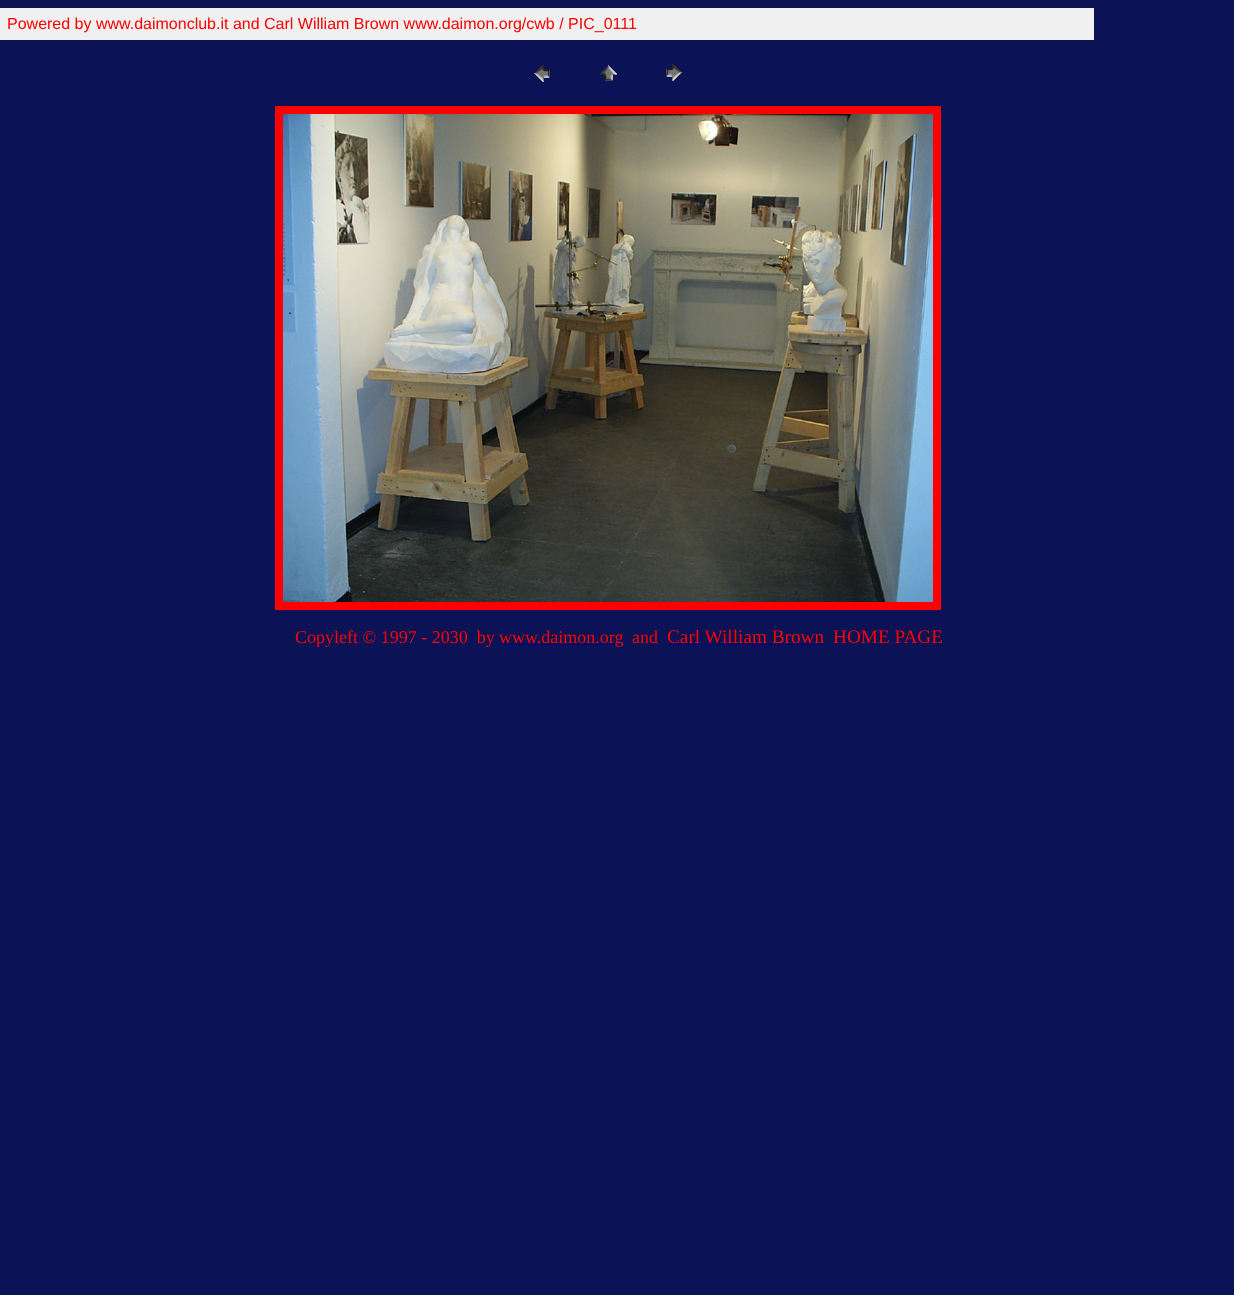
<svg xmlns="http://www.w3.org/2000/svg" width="1234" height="1295">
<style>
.a{font:16px Liberation Sans;fill:#f00}
.b{font:18px Liberation Serif;fill:#f00}
.c{font:19.25px Liberation Serif;fill:#f00}
</style>
<rect width="100%" height="100%" fill="#0b1255"/>
<path fill="#f0f0f0" d="M0 8h1094v32H0z"/>
<image href="1.png" x="534" y="65" width="16" height="17"/>
<image href="2.png" x="600" y="65" width="17" height="16"/>
<image href="3.png" x="666" y="64" width="16" height="17"/>
<path fill="none" stroke="#f00" stroke-width="8" d="M279 110h658v496H279z"/>
<image href="4.png" x="283" y="114" width="650" height="488"/>
<path fill="#000080" d="M499 644h124v1H499z"/>
<path fill="#000080" d="M667 644h157v1H667z"/>
<text class="a" x="7" y="29">Powered by www.daimonclub.it and Carl William Brown www.daimon.org/cwb / PIC_0111</text>
<text class="b" xml:space="preserve" x="295" y="643">Copyleft © 1997 - 2030  by</text>
<text class="b" x="499" y="643">www.daimon.org</text>
<text class="b" x="632" y="643">and</text>
<text class="c" x="667" y="643">Carl William Brown</text>
<text class="c" x="833" y="643">HOME PAGE</text>
</svg>
